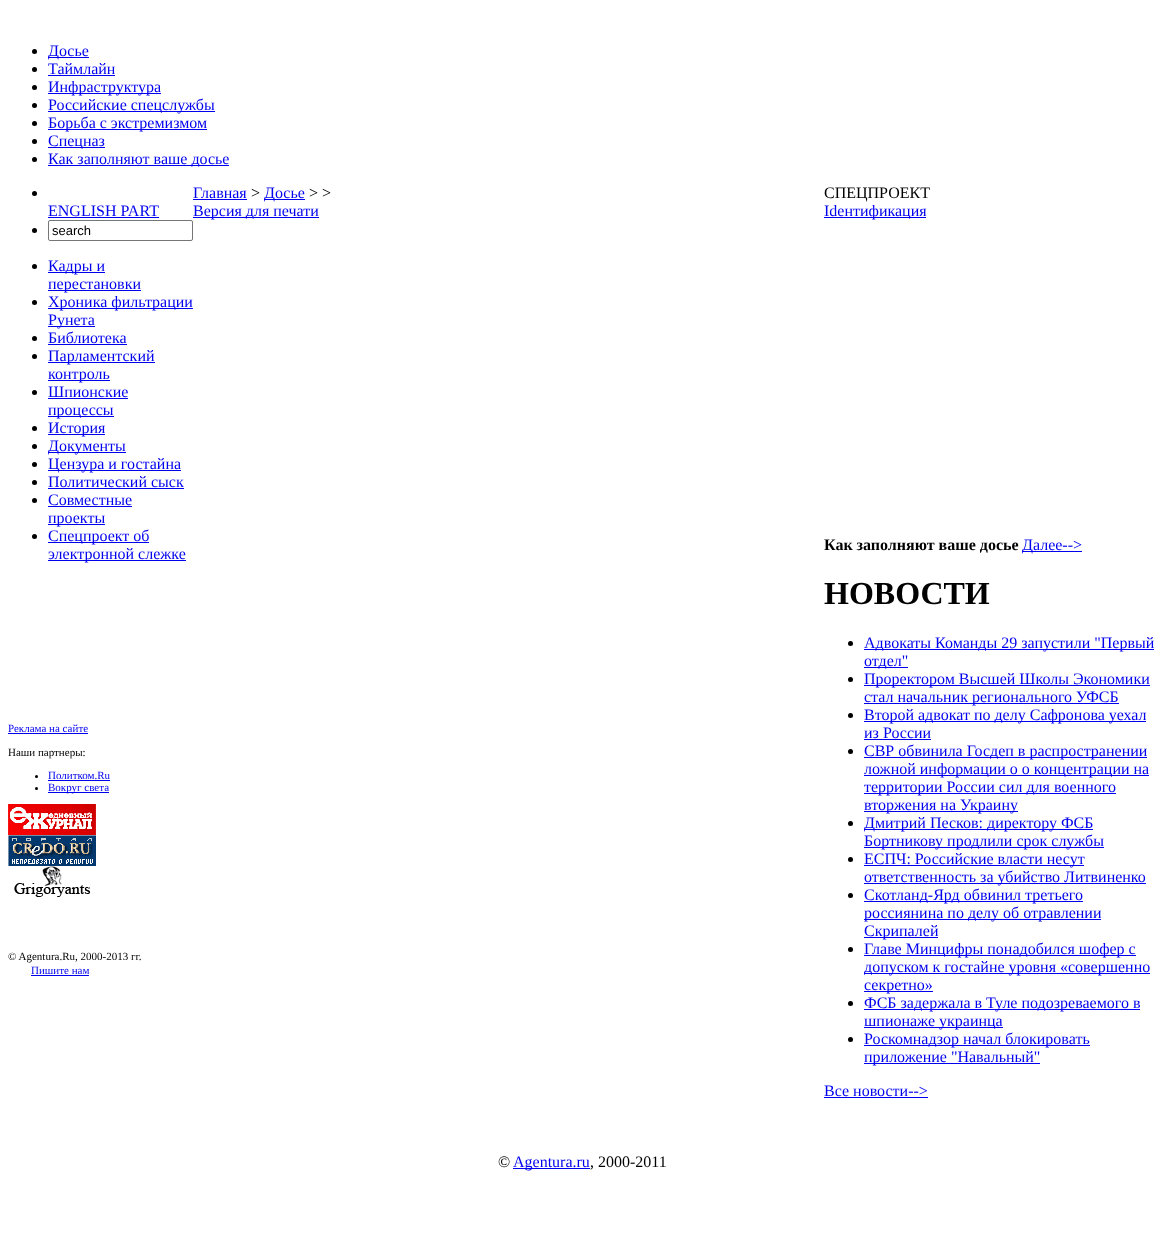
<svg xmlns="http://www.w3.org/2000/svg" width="1165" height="1236">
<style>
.a{font:16px Liberation Serif;fill:#00e}
.b{font:13px Liberation Sans;fill:#000}
.c{font:11px Liberation Serif;fill:#00e}
.d{font:11px Liberation Serif;fill:#000}
.e{font:16px Liberation Serif;fill:#000}
.f{font:bold 16px Liberation Serif;fill:#000}
.g{font:bold 32px Liberation Serif;fill:#000}
</style>
<rect width="100%" height="100%" fill="#fff"/>
<circle fill="#000" cx="34.5" cy="51.5" r="2.5"/>
<path fill="#00e" d="M48 57h41v1H48z"/>
<circle fill="#000" cx="34.5" cy="69.5" r="2.5"/>
<path fill="#00e" d="M48 75h67v1H48z"/>
<circle fill="#000" cx="34.5" cy="87.5" r="2.5"/>
<path fill="#00e" d="M48 93h113v1H48z"/>
<circle fill="#000" cx="34.5" cy="105.5" r="2.5"/>
<path fill="#00e" d="M48 111h167v1H48z"/>
<circle fill="#000" cx="34.5" cy="123.5" r="2.5"/>
<path fill="#00e" d="M48 129h159v1H48z"/>
<circle fill="#000" cx="34.5" cy="141.5" r="2.5"/>
<path fill="#00e" d="M48 147h57v1H48z"/>
<circle fill="#000" cx="34.5" cy="159.5" r="2.5"/>
<path fill="#00e" d="M48 165h181v1H48z"/>
<circle fill="#000" cx="34.5" cy="193.5" r="2.5"/>
<path fill="#00e" d="M48 217h111v1H48z"/>
<circle fill="#000" cx="34.5" cy="230.5" r="2.5"/>
<rect fill="none" stroke="#767676" x="48.5" y="220.5" width="144" height="20" rx="1.5"/>
<circle fill="#000" cx="34.5" cy="266.5" r="2.5"/>
<path fill="#00e" d="M48 272h57v1H48z"/>
<path fill="#00e" d="M48 290h93v1H48z"/>
<circle fill="#000" cx="34.5" cy="302.5" r="2.5"/>
<path fill="#00e" d="M48 308h145v1H48z"/>
<path fill="#00e" d="M48 326h47v1H48z"/>
<circle fill="#000" cx="34.5" cy="338.5" r="2.5"/>
<path fill="#00e" d="M48 344h79v1H48z"/>
<circle fill="#000" cx="34.5" cy="356.5" r="2.5"/>
<path fill="#00e" d="M48 362h107v1H48z"/>
<path fill="#00e" d="M48 380h62v1H48z"/>
<circle fill="#000" cx="34.5" cy="392.5" r="2.5"/>
<path fill="#00e" d="M48 398h80v1H48z"/>
<path fill="#00e" d="M48 416h66v1H48z"/>
<circle fill="#000" cx="34.5" cy="428.5" r="2.5"/>
<path fill="#00e" d="M48 434h57v1H48z"/>
<circle fill="#000" cx="34.5" cy="446.5" r="2.5"/>
<path fill="#00e" d="M48 452h78v1H48z"/>
<circle fill="#000" cx="34.5" cy="464.5" r="2.5"/>
<path fill="#00e" d="M48 470h133v1H48z"/>
<circle fill="#000" cx="34.5" cy="482.5" r="2.5"/>
<path fill="#00e" d="M48 488h136v1H48z"/>
<circle fill="#000" cx="34.5" cy="500.5" r="2.5"/>
<path fill="#00e" d="M48 506h84v1H48z"/>
<path fill="#00e" d="M48 524h57v1H48z"/>
<circle fill="#000" cx="34.5" cy="536.5" r="2.5"/>
<path fill="#00e" d="M48 542h101v1H48z"/>
<path fill="#00e" d="M48 560h138v1H48z"/>
<path fill="#00e" d="M8 733h80v1H8z"/>
<circle fill="#000" cx="36.5" cy="776.5" r="1.5"/>
<path fill="#00e" d="M48 780h62v1H48z"/>
<circle fill="#000" cx="36.5" cy="788.5" r="1.5"/>
<path fill="#00e" d="M48 792h61v1H48z"/>
<image href="1.png" x="8" y="804" width="88" height="31"/>
<image href="2.png" x="8" y="835" width="88" height="31"/>
<image href="3.png" x="14" y="866" width="76" height="31"/>
<path fill="#00e" d="M31 975h58v1H31z"/>
<path fill="#00e" d="M193 199h54v1H193z"/>
<path fill="#00e" d="M264 199h41v1H264z"/>
<path fill="#00e" d="M193 217h126v1H193z"/>
<path fill="#00e" d="M824 217h102v1H824z"/>
<path fill="#00e" d="M1022 551h60v1H1022z"/>
<circle fill="#000" cx="850.5" cy="643.5" r="2.5"/>
<path fill="#00e" d="M864 649h290v1H864z"/>
<path fill="#00e" d="M864 667h44v1H864z"/>
<circle fill="#000" cx="850.5" cy="679.5" r="2.5"/>
<path fill="#00e" d="M864 685h286v1H864z"/>
<path fill="#00e" d="M864 703h255v1H864z"/>
<circle fill="#000" cx="850.5" cy="715.5" r="2.5"/>
<path fill="#00e" d="M864 721h282v1H864z"/>
<path fill="#00e" d="M864 739h67v1H864z"/>
<circle fill="#000" cx="850.5" cy="751.5" r="2.5"/>
<path fill="#00e" d="M864 757h283v1H864z"/>
<path fill="#00e" d="M864 775h285v1H864z"/>
<path fill="#00e" d="M864 793h252v1H864z"/>
<path fill="#00e" d="M864 811h154v1H864z"/>
<circle fill="#000" cx="850.5" cy="823.5" r="2.5"/>
<path fill="#00e" d="M864 829h229v1H864z"/>
<path fill="#00e" d="M864 847h240v1H864z"/>
<circle fill="#000" cx="850.5" cy="859.5" r="2.5"/>
<path fill="#00e" d="M864 865h220v1H864z"/>
<path fill="#00e" d="M864 883h282v1H864z"/>
<circle fill="#000" cx="850.5" cy="895.5" r="2.5"/>
<path fill="#00e" d="M864 901h219v1H864z"/>
<path fill="#00e" d="M864 919h237v1H864z"/>
<path fill="#00e" d="M864 937h74v1H864z"/>
<circle fill="#000" cx="850.5" cy="949.5" r="2.5"/>
<path fill="#00e" d="M864 955h272v1H864z"/>
<path fill="#00e" d="M864 973h286v1H864z"/>
<path fill="#00e" d="M864 991h69v1H864z"/>
<circle fill="#000" cx="850.5" cy="1003.5" r="2.5"/>
<path fill="#00e" d="M864 1009h276v1H864z"/>
<path fill="#00e" d="M864 1027h139v1H864z"/>
<circle fill="#000" cx="850.5" cy="1039.5" r="2.5"/>
<path fill="#00e" d="M864 1045h226v1H864z"/>
<path fill="#00e" d="M864 1063h176v1H864z"/>
<path fill="#00e" d="M824 1097h104v1H824z"/>
<path fill="#00e" d="M513 1168h77v1H513z"/>
<text class="a" x="48" y="56">Досье</text>
<text class="a" x="48" y="74">Таймлайн</text>
<text class="a" x="48" y="92">Инфраструктура</text>
<text class="a" x="48" y="110">Российские спецслужбы</text>
<text class="a" x="48" y="128">Борьба с экстремизмом</text>
<text class="a" x="48" y="146">Спецназ</text>
<text class="a" x="48" y="164">Как заполняют ваше досье</text>
<text class="a" x="48" y="216">ENGLISH PART</text>
<text class="b" x="52" y="235">search</text>
<text class="a" x="48" y="271">Кадры и</text>
<text class="a" x="48" y="289">перестановки</text>
<text class="a" x="48" y="307">Хроника фильтрации</text>
<text class="a" x="48" y="325">Рунета</text>
<text class="a" x="48" y="343">Библиотека</text>
<text class="a" x="48" y="361">Парламентский</text>
<text class="a" x="48" y="379">контроль</text>
<text class="a" x="48" y="397">Шпионские</text>
<text class="a" x="48" y="415">процессы</text>
<text class="a" x="48" y="433">История</text>
<text class="a" x="48" y="451">Документы</text>
<text class="a" x="48" y="469">Цензура и гостайна</text>
<text class="a" x="48" y="487">Политический сыск</text>
<text class="a" x="48" y="505">Совместные</text>
<text class="a" x="48" y="523">проекты</text>
<text class="a" x="48" y="541">Спецпроект об</text>
<text class="a" x="48" y="559">электронной слежке</text>
<text class="c" x="8" y="732">Реклама на сайте</text>
<text class="d" x="8" y="756">Наши партнеры:</text>
<text class="c" x="48" y="779">Политком.Ru</text>
<text class="c" x="48" y="791">Вокруг света</text>
<text class="d" x="8" y="960">© Agentura.Ru, 2000-2013 гг.</text>
<text class="c" x="31" y="974">Пишите нам</text>
<text class="a" x="193" y="198">Главная</text>
<text class="e" x="251" y="198">&gt;</text>
<text class="a" x="264" y="198">Досье</text>
<text class="e" x="309" y="198">&gt; &gt;</text>
<text class="a" x="193" y="216">Версия для печати</text>
<text class="e" x="824" y="198">СПЕЦПРОЕКТ</text>
<text class="a" x="824" y="216">Idентификация</text>
<text class="f" x="824" y="550">Как заполняют ваше досье</text>
<text class="a" x="1022" y="550">Далее--&gt;</text>
<text class="g" x="824" y="604">НОВОСТИ</text>
<text class="a" x="864" y="648">Адвокаты Команды 29 запустили "Первый</text>
<text class="a" x="864" y="666">отдел"</text>
<text class="a" x="864" y="684">Проректором Высшей Школы Экономики</text>
<text class="a" x="864" y="702">стал начальник регионального УФСБ</text>
<text class="a" x="864" y="720">Второй адвокат по делу Сафронова уехал</text>
<text class="a" x="864" y="738">из России</text>
<text class="a" x="864" y="756">СВР обвинила Госдеп в распространении</text>
<text class="a" x="864" y="774">ложной информации о о концентрации на</text>
<text class="a" x="864" y="792">территории России сил для военного</text>
<text class="a" x="864" y="810">вторжения на Украину</text>
<text class="a" x="864" y="828">Дмитрий Песков: директору ФСБ</text>
<text class="a" x="864" y="846">Бортникову продлили срок службы</text>
<text class="a" x="864" y="864">ЕСПЧ: Российские власти несут</text>
<text class="a" x="864" y="882">ответственность за убийство Литвиненко</text>
<text class="a" x="864" y="900">Скотланд-Ярд обвинил третьего</text>
<text class="a" x="864" y="918">россиянина по делу об отравлении</text>
<text class="a" x="864" y="936">Скрипалей</text>
<text class="a" x="864" y="954">Главе Минцифры понадобился шофер с</text>
<text class="a" x="864" y="972">допуском к гостайне уровня «совершенно</text>
<text class="a" x="864" y="990">секретно»</text>
<text class="a" x="864" y="1008">ФСБ задержала в Туле подозреваемого в</text>
<text class="a" x="864" y="1026">шпионаже украинца</text>
<text class="a" x="864" y="1044">Роскомнадзор начал блокировать</text>
<text class="a" x="864" y="1062">приложение "Навальный"</text>
<text class="a" x="824" y="1096">Все новости--&gt;</text>
<text class="e" x="498" y="1167">©</text>
<text class="a" x="513" y="1167">Agentura.ru</text>
<text class="e" x="590" y="1167">, 2000-2011</text>
</svg>
